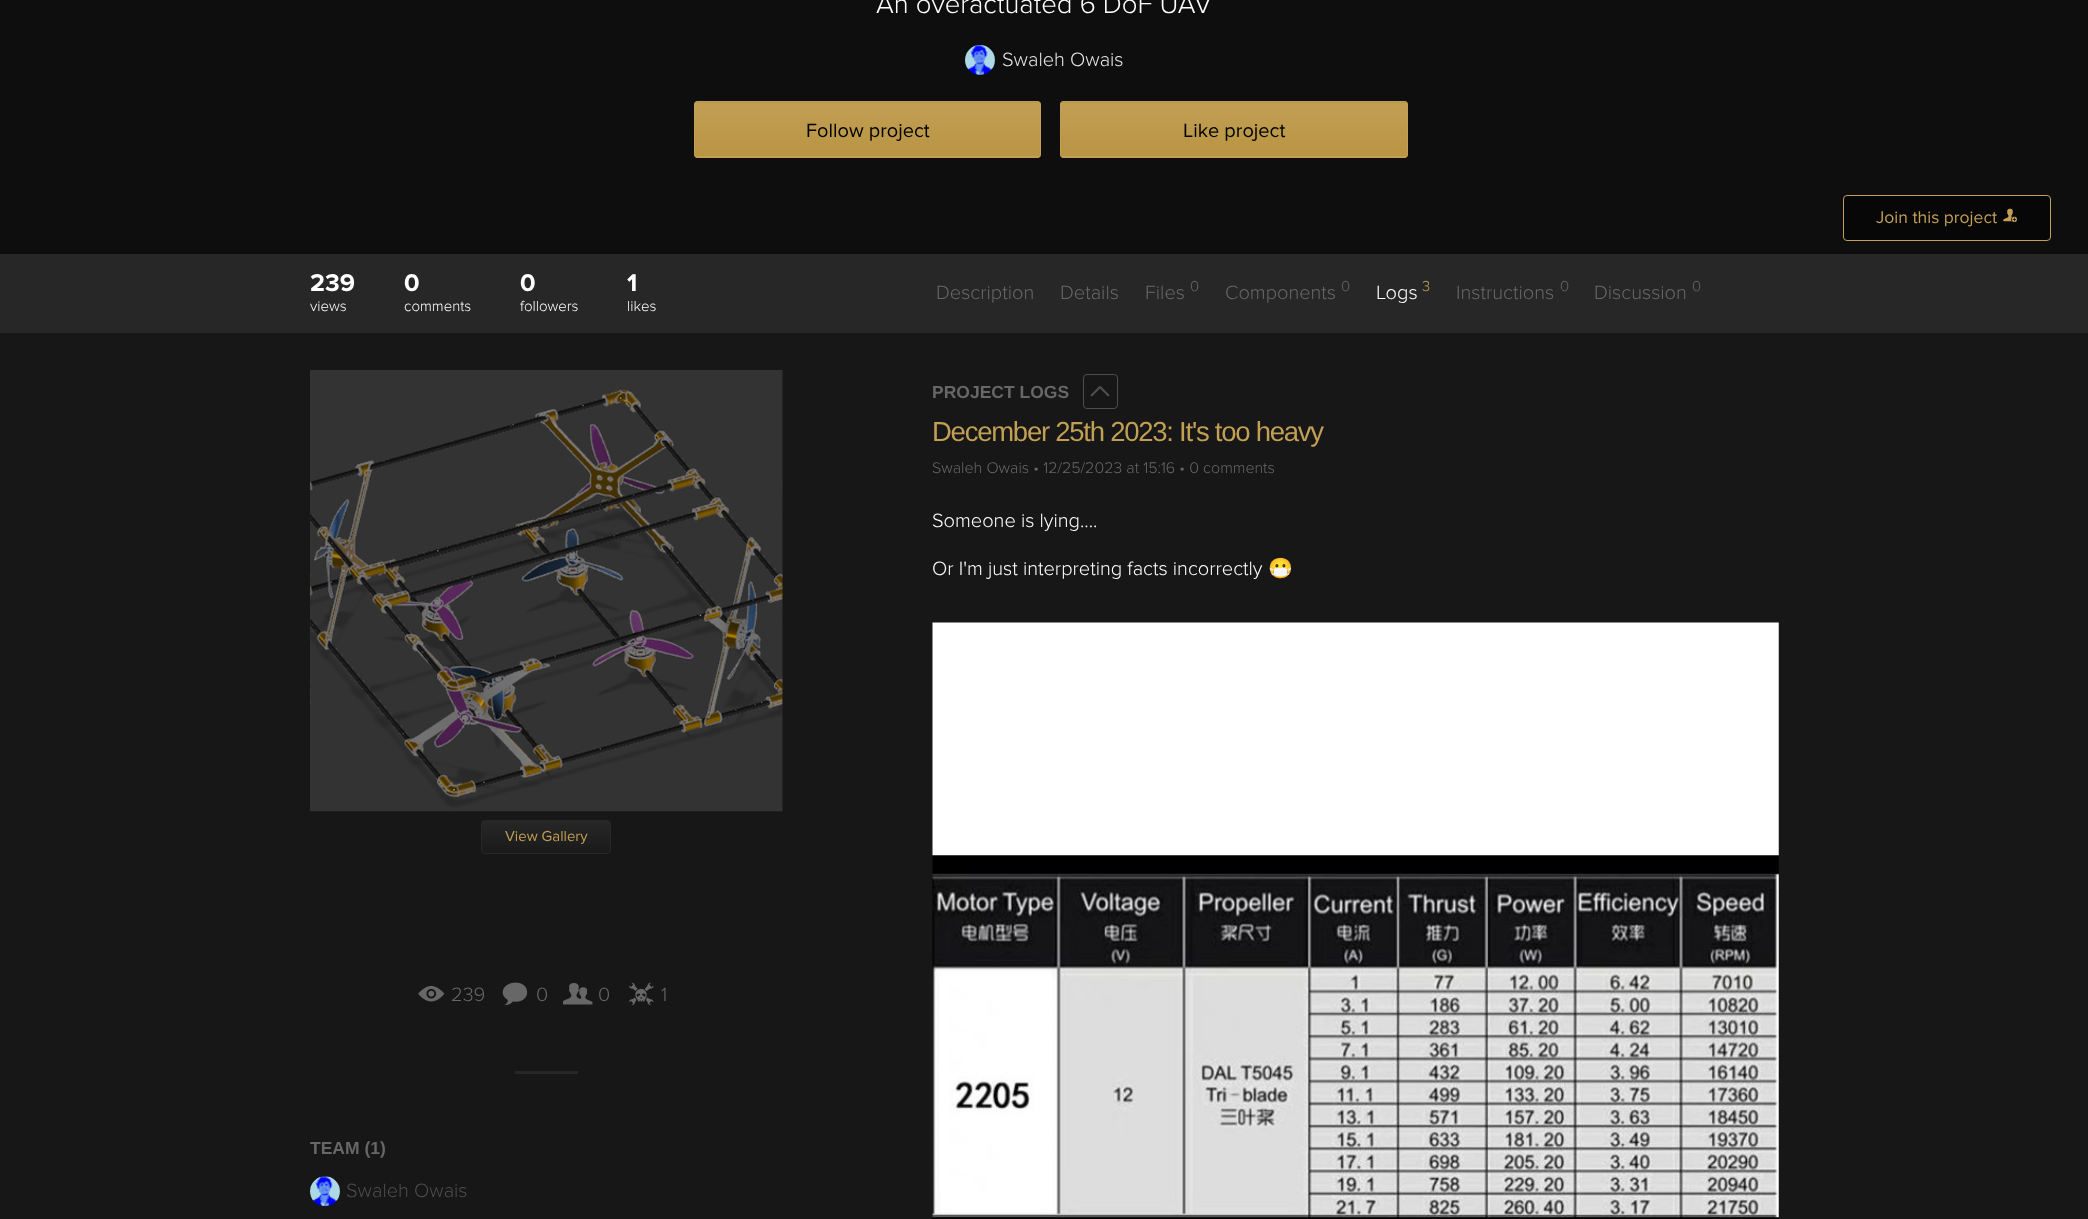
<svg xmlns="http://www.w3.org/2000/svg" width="2088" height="1219">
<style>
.a{font:300 27.5px Proxima Nova;fill:#fff}
.b{font:300 20px Proxima Nova;fill:#e6e6e6}
.c{font:20px Proxima Nova;fill:#000}
.d{font:17.5px Proxima Nova;fill:#c19f54}
.e{font:bold 25px Proxima Nova;fill:#fff}
.f{font:300 15px Proxima Nova;fill:#fff}
.g{font:300 20px Proxima Nova;fill:#676767}
.h{font:300 15px Proxima Nova;fill:#676767}
.i{font:300 20px Proxima Nova;fill:#fff}
.j{font:300 15px Proxima Nova;fill:#c19f54}
.k{font:bold 17.5px Liberation Sans;fill:#676767}
.l{font:27.5px Liberation Sans;letter-spacing:-1.25px;fill:#c19f54}
.m{font:300 16px Proxima Nova;fill:#676767}
.n{font:20px Noto Color Emoji;fill:#c19f54}
.o{font:15px Proxima Nova;fill:#c19f54}
.p{font:300 20px Proxima Nova;fill:#4d4d4d}
</style>
<defs>
<clipPath id="clip1"><rect x="694" y="101" width="347" height="57" rx="4"/></clipPath>
<linearGradient id="g1" gradientUnits="userSpaceOnUse" x1="868" y1="49" x2="868" y2="103"><stop offset="0" stop-color="#c19f54"/><stop offset="1" stop-color="#b99443"/></linearGradient>
<linearGradient id="g2" gradientUnits="userSpaceOnUse" x1="868" y1="102" x2="868" y2="156"><stop offset="0" stop-color="#c19f54"/><stop offset="1" stop-color="#b99443"/></linearGradient>
<linearGradient id="g3" gradientUnits="userSpaceOnUse" x1="868" y1="156" x2="868" y2="210"><stop offset="0" stop-color="#c19f54"/><stop offset="1" stop-color="#b99443"/></linearGradient>
<clipPath id="clip2"><rect x="1060" y="101" width="348" height="57" rx="4"/></clipPath>
<linearGradient id="g4" gradientUnits="userSpaceOnUse" x1="1234" y1="49" x2="1234" y2="103"><stop offset="0" stop-color="#c19f54"/><stop offset="1" stop-color="#b99443"/></linearGradient>
<linearGradient id="g5" gradientUnits="userSpaceOnUse" x1="1234" y1="102" x2="1234" y2="156"><stop offset="0" stop-color="#c19f54"/><stop offset="1" stop-color="#b99443"/></linearGradient>
<linearGradient id="g6" gradientUnits="userSpaceOnUse" x1="1234" y1="156" x2="1234" y2="210"><stop offset="0" stop-color="#c19f54"/><stop offset="1" stop-color="#b99443"/></linearGradient>
<clipPath id="clip3"><rect x="481" y="820" width="130" height="34" rx="4"/></clipPath>
<linearGradient id="g7" gradientUnits="userSpaceOnUse" x1="546" y1="821" x2="546" y2="853"><stop offset="0" stop-color="#272727"/><stop offset="1" stop-color="#1a1a1a"/></linearGradient>
</defs>
<rect width="100%" height="100%" fill="#171717"/>
<path fill="#0e0e0e" d="M0 0h2088v254H0z"/>
<circle fill="#000" cx="980" cy="60" r="15"/>
<image href="1.png" x="965" y="45" width="30" height="30"/>
<g clip-path="url(#clip1)">
<path fill="url(#g1)" d="M694 101h347v2H694z"/>
<path fill="url(#g2)" d="M694 103h347v53H694z"/>
<path fill="url(#g3)" d="M694 156h347v2H694z"/>
</g>
<rect fill="none" stroke="#c19f54" x="694.5" y="101.5" width="346" height="56" rx="3.5"/>
<g clip-path="url(#clip2)">
<path fill="url(#g4)" d="M1060 101h348v2H1060z"/>
<path fill="url(#g5)" d="M1060 103h348v53H1060z"/>
<path fill="url(#g6)" d="M1060 156h348v2H1060z"/>
</g>
<rect fill="none" stroke="#c19f54" x="1060.5" y="101.5" width="347" height="56" rx="3.5"/>
<rect fill="#070707" stroke="#c19f54" x="1843.5" y="195.5" width="207" height="45" rx="3.5"/>
<image href="2.png" x="2003" y="208" width="15" height="15"/>
<path fill="#272727" d="M0 254h2088v79H0z"/>
<rect fill="none" stroke="#4d4d4d" x="1083.5" y="374.5" width="34" height="34" rx="3.5"/>
<image href="3.png" x="1090" y="386" width="20" height="11"/>
<image href="4.png" x="932" y="622" width="847" height="597"/>
<image href="5.png" x="310" y="370" width="473" height="442"/>
<g clip-path="url(#clip3)">
<path fill="url(#g7)" d="M481 821h130v32H481z"/>
</g>
<rect fill="none" stroke="#272727" x="481.5" y="820.5" width="129" height="33" rx="3.5"/>
<image href="6.png" x="418" y="985" width="27" height="17"/>
<image href="7.png" x="502" y="982" width="26" height="23"/>
<image href="8.png" x="563" y="983" width="30" height="22"/>
<image href="9.png" x="629" y="982" width="25" height="24"/>
<path fill="#272727" d="M515 1071h63v3H515z"/>
<circle fill="#000" cx="325" cy="1191" r="15"/>
<image href="10.png" x="310" y="1176" width="30" height="31"/>
<text class="a" x="876" y="13">An overactuated 6 DoF UAV</text>
<text class="b" x="1002" y="66">Swaleh Owais</text>
<text class="c" x="806" y="137">Follow project</text>
<text class="c" x="1183" y="137">Like project</text>
<text class="d" x="1876" y="223">Join this project</text>
<text class="e" x="310" y="291">239</text>
<text class="f" x="310" y="311">views</text>
<text class="e" x="404" y="291">0</text>
<text class="f" x="404" y="311">comments</text>
<text class="e" x="520" y="291">0</text>
<text class="f" x="520" y="311">followers</text>
<text class="e" x="627" y="291">1</text>
<text class="f" x="627" y="311">likes</text>
<text class="g" x="936" y="299">Description</text>
<text class="g" x="1060" y="299">Details</text>
<text class="g" x="1145" y="299">Files</text>
<text class="h" x="1190" y="291">0</text>
<text class="g" x="1225" y="299">Components</text>
<text class="h" x="1341" y="291">0</text>
<text class="i" x="1376" y="299">Logs</text>
<text class="j" x="1422" y="291">3</text>
<text class="g" x="1456" y="299">Instructions</text>
<text class="h" x="1560" y="291">0</text>
<text class="g" x="1594" y="299">Discussion</text>
<text class="h" x="1692" y="291">0</text>
<text class="k" x="932" y="398">PROJECT LOGS</text>
<text class="l" x="932" y="441">December 25th 2023: It's too heavy</text>
<text class="m" x="932" y="473">Swaleh Owais • 12/25/2023 at 15:16 • 0 comments</text>
<text class="i" x="932" y="527">Someone is lying....</text>
<text class="i" x="932" y="575">Or I'm just interpreting facts incorrectly</text>
<text class="n" x="1268" y="575">😷</text>
<text class="o" x="505" y="841">View Gallery</text>
<text class="g" x="451" y="1001">239</text>
<text class="g" x="536" y="1001">0</text>
<text class="g" x="598" y="1001">0</text>
<text class="g" x="661" y="1001">1</text>
<text class="k" x="310" y="1154">TEAM (1)</text>
<text class="p" x="346" y="1197">Swaleh Owais</text>
</svg>
